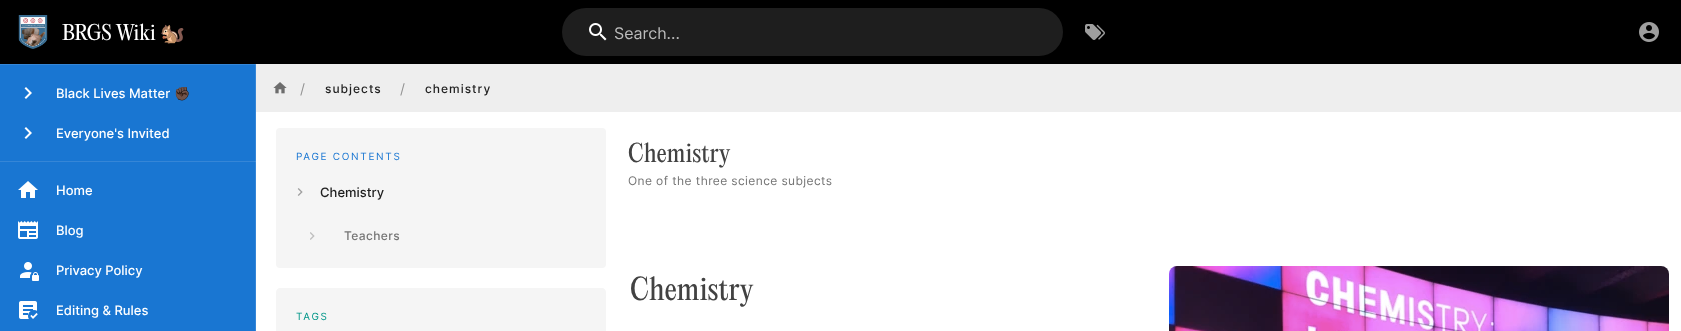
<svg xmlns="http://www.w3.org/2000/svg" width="1681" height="331">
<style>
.a{font:20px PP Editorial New;fill:#fff}
.b{font:20px Noto Color Emoji;fill:#fff}
.c{font:16px Inter;fill:#bcbcbc}
.d{font:500 13px Inter;fill:#fff}
.e{font:13px Noto Color Emoji;fill:#fff}
.f{font:14px Inter;fill:#949494}
.g{font:500 12px Inter;letter-spacing:1px;fill:#1f1f1f}
.h{font:24px PP Editorial New;fill:#424242}
.i{font:12px Inter;letter-spacing:0.4px;fill:#757575}
.j{font:10px Inter;letter-spacing:1.7px;fill:#1976d2}
.k{font:500 13px Inter;fill:#1f1f1f}
.l{font:500 12px Inter;letter-spacing:0.4px;fill:#757575}
.m{font:10px Inter;letter-spacing:1.7px;fill:#009688}
.n{font:29px PP Editorial New;fill:#424242}
</style>
<rect width="100%" height="100%" fill="#fff"/>
<path fill="#000" d="M0 0h1681v64H0z"/>
<image href="1.png" x="18" y="15" width="30" height="34"/>
<rect fill="#1e1e1e" x="562" y="8" width="501" height="48" rx="24"/>
<image href="2.png" x="589" y="23" width="18" height="18"/>
<image href="3.png" x="1085" y="24" width="20" height="16"/>
<image href="4.png" x="1639" y="22" width="20" height="20"/>
<path fill="#1976d2" d="M0 65h255v266H0z"/>
<path fill="#3586d7" d="M255 64h1v267H255z"/>
<path fill="#3586d7" d="M0 64h256v1H0z"/>
<path fill="#4d95dc" d="M255 64h1v1H255z"/>
<image href="5.png" x="24" y="87" width="8" height="12"/>
<image href="5.png" x="24" y="127" width="8" height="12"/>
<path fill="#3586d7" d="M0 161h256v1H0z"/>
<path fill="#4d95dc" d="M255 161h1v1H255z"/>
<image href="6.png" x="18" y="181" width="20" height="17"/>
<image href="7.png" x="18" y="221" width="20" height="18"/>
<image href="8.png" x="20" y="262" width="19" height="19"/>
<image href="9.png" x="19" y="301" width="19" height="18"/>
<path fill="#eee" d="M256 64h1425v48H256z"/>
<image href="10.png" x="273" y="82" width="14" height="12"/>
<rect fill="#f5f5f5" x="276" y="128" width="330" height="140" rx="4"/>
<image href="11.png" x="297" y="188" width="6" height="8"/>
<image href="12.png" x="310" y="232" width="5" height="8"/>
<path fill="#f5f5f5" d="M280 288h322c2 0 4 2 4 4v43h-330v-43c0-2 2-4 4-4z"/>
<image href="13.png" x="1169" y="266" width="500" height="65"/>
<text class="a" x="62" y="40">BRGS Wiki</text>
<text class="b" x="160" y="40">🐿️</text>
<text class="c" x="614" y="39">Search...</text>
<text class="d" x="56" y="98">Black Lives Matter</text>
<text class="e" x="174" y="98">✊🏿</text>
<text class="d" x="56" y="138">Everyone's Invited</text>
<text class="d" x="56" y="195">Home</text>
<text class="d" x="56" y="235">Blog</text>
<text class="d" x="56" y="275">Privacy Policy</text>
<text class="d" x="56" y="315">Editing &amp; Rules</text>
<text class="f" x="300" y="94">/</text>
<text class="g" x="325" y="93">subjects</text>
<text class="f" x="400" y="94">/</text>
<text class="g" x="425" y="93">chemistry</text>
<text class="h" x="628" y="162">Chemistry</text>
<text class="i" x="628" y="185">One of the three science subjects</text>
<text class="j" x="296" y="160">PAGE CONTENTS</text>
<text class="k" x="320" y="197">Chemistry</text>
<text class="l" x="344" y="240">Teachers</text>
<text class="m" x="296" y="320">TAGS</text>
<text class="n" x="630" y="300">Chemistry</text>
</svg>
